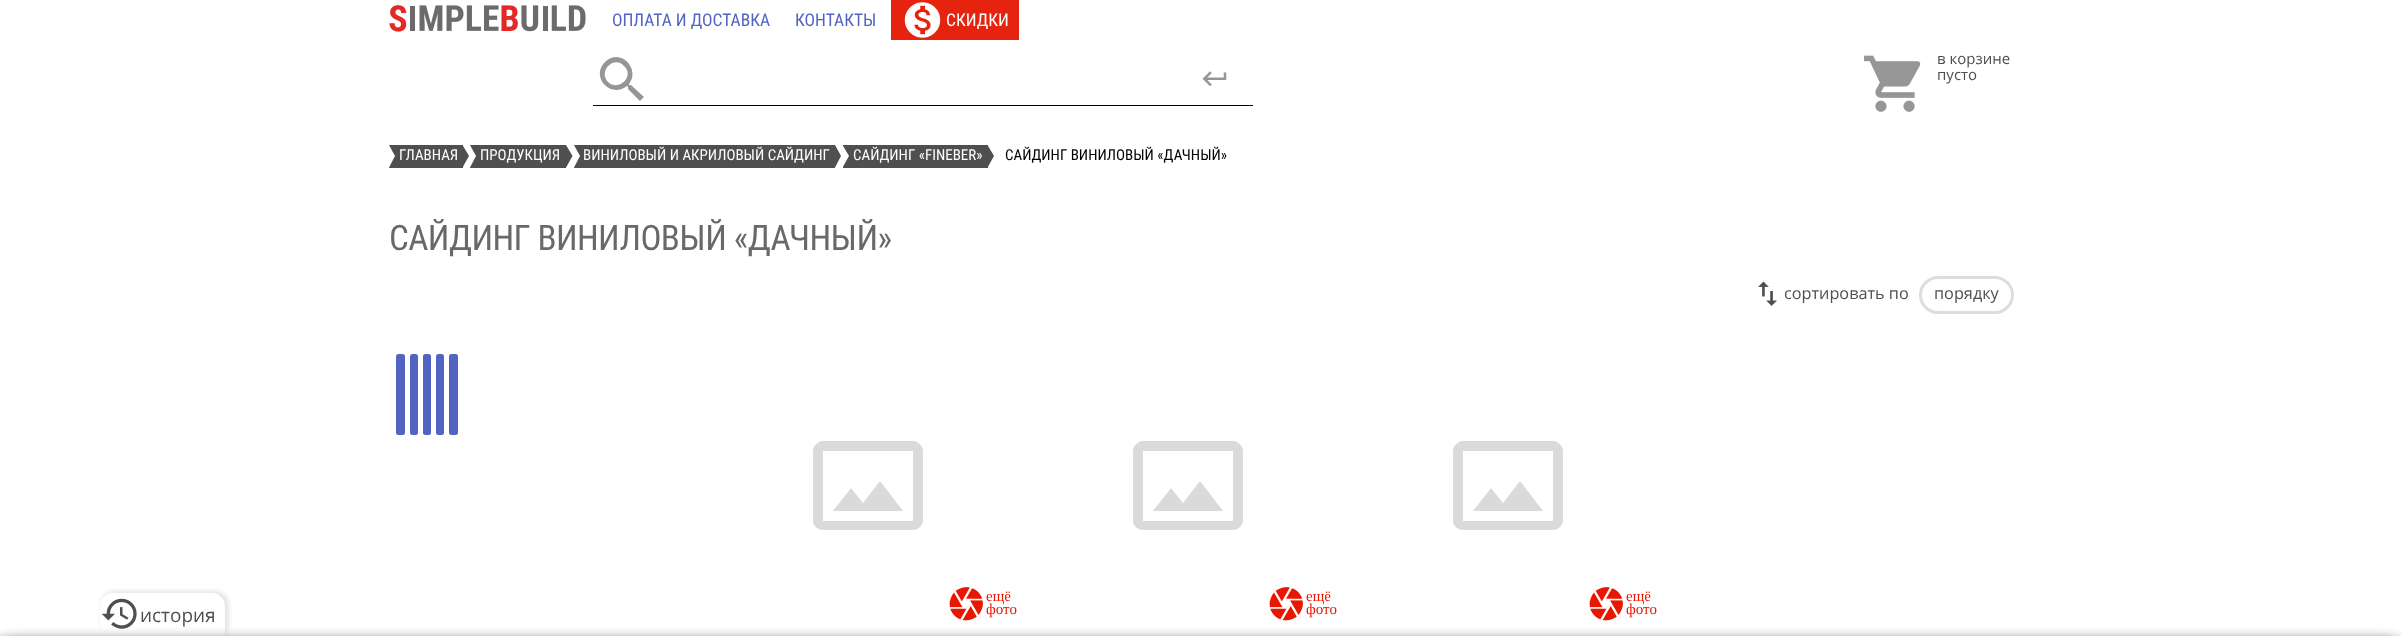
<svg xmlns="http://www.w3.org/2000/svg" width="2402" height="636">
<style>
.a{font:19px Open Sans;fill:#4f4f4f}
.b{font:17.5px Roboto Condensed;fill:#5264c2}
.c{font:17.5px Roboto Condensed;fill:#fff}
.d{font:15px Open Sans;fill:#4f4f4f}
.e{font:15px Roboto Condensed;fill:#fff}
.f{font:15px Roboto Condensed;fill:#000}
.g{font:35px Roboto Condensed;letter-spacing:-0.6px;fill:#696969}
.h{font:16.25px Open Sans;fill:#4f4f4f}
.i{font:15px Liberation Serif;fill:#e81603}
</style>
<rect width="100%" height="100%" fill="#fff"/>
<rect fill="#0000001a" filter="blur(2px)" x="101" y="591" width="128" height="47" rx="14"/>
<path fill="#fff" d="M113 593h99c7 0 13 6 13 13v30h-125v-30c0-7 6-13 13-13z"/>
<image href="1.png" x="101" y="598" width="36" height="31"/>
<image href="2.png" x="389" y="5" width="197" height="27"/>
<path fill="#e5230e" d="M891 0h128v40H891z"/>
<image href="3.png" x="904" y="2" width="37" height="36"/>
<path fill="#000" d="M593 105h660v1H593z"/>
<path fill="#969696" d="M608 82c11 10 27-6 16-16c-10-11-26 5-16 16zm23 3l13 12l-4 4l-12-12v-2l-1-1c-16 13-37-9-22-24c15-15 36 7 24 22v1z"/>
<image href="4.png" x="1864" y="55" width="57" height="57"/>
<image href="5.png" x="1202" y="71" width="25" height="15"/>
<path fill="#4f4f4f" d="M389 145h74v23H389z"/>
<path fill="#fff" d="M389 167.5v-22.5l6 11z"/>
<path fill="#4f4f4f" d="M462.5 167.5v-22.5l6.5 11z"/>
<path fill="#4f4f4f" d="M470 145h96v23H470z"/>
<path fill="#fff" d="M470 167.5v-22.5l6 11z"/>
<path fill="#4f4f4f" d="M566 167.5v-22.5l6.5 11z"/>
<path fill="#4f4f4f" d="M574 145h261v23H574z"/>
<path fill="#fff" d="M574 167.5v-22.5l6 11z"/>
<path fill="#4f4f4f" d="M835 167.5v-22.5l6 11z"/>
<path fill="#4f4f4f" d="M843 145h145v23H843z"/>
<path fill="#fff" d="M842.5 167.5v-22.5l6.5 11z"/>
<path fill="#4f4f4f" d="M987.5 167.5v-22.5l6.5 11z"/>
<image href="6.png" x="1758" y="281" width="19" height="25"/>
<rect fill="none" stroke="#ddd" stroke-width="3" x="1920.5" y="277.5" width="92" height="35" rx="17.5"/>
<rect fill="#5264c2" x="396" y="354" width="9" height="81" rx="2.5"/>
<rect fill="#5264c2" x="410" y="354" width="8" height="81" rx="2.5"/>
<rect fill="#5264c2" x="423" y="354" width="8" height="81" rx="2.5"/>
<rect fill="#5264c2" x="436" y="354" width="8" height="81" rx="2.5"/>
<rect fill="#5264c2" x="449" y="354" width="9" height="81" rx="2.5"/>
<path fill="#dadada" d="M913 441h-90c-5 0-10 5-10 10v70c0 5 5 9 10 9h90c5 0 10-5 10-9v-70c0-5-5-10-10-10zm0 79l-1 1h-89v-70h1h88h1zm-50-17l-12-15l-18 23h70l-23-30z"/>
<image href="7.png" x="949" y="587" width="34" height="34"/>
<path fill="#dadada" d="M1233 441h-90c-5 0-10 5-10 10v70c0 5 5 9 10 9h90c5 0 10-5 10-9v-70c0-5-5-10-10-10zm0 79l-1 1h-89v-70h1h88h1zm-50-17l-12-15l-18 23h70l-23-30z"/>
<image href="7.png" x="1269" y="587" width="34" height="34"/>
<path fill="#dadada" d="M1553 441h-90c-5 0-10 5-10 10v70c0 5 5 9 10 9h90c5 0 10-5 10-9v-70c0-5-5-10-10-10zm0 79l-1 1h-89v-70h1h88h1zm-50-17l-12-15l-18 23h70l-23-30z"/>
<image href="7.png" x="1589" y="587" width="34" height="34"/>
<rect fill="#00000099" filter="blur(6px)" x="-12" y="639" width="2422" height="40" rx="25"/>
<text class="a" x="140" y="622">история</text>
<text class="b" x="612" y="26">ОПЛАТА И ДОСТАВКА</text>
<text class="b" x="795" y="26">КОНТАКТЫ</text>
<text class="c" x="946" y="26">СКИДКИ</text>
<text class="d" x="1937" y="64">в корзине</text>
<text class="d" x="1937" y="80">пусто</text>
<text class="e" x="399" y="160">ГЛАВНАЯ</text>
<text class="e" x="480" y="160">ПРОДУКЦИЯ</text>
<text class="e" x="583" y="160">ВИНИЛОВЫЙ И АКРИЛОВЫЙ САЙДИНГ</text>
<text class="e" x="853" y="160">САЙДИНГ «FINEBER»</text>
<text class="f" x="1005" y="160">САЙДИНГ ВИНИЛОВЫЙ «ДАЧНЫЙ»</text>
<text class="g" x="389" y="250">САЙДИНГ ВИНИЛОВЫЙ «ДАЧНЫЙ»</text>
<text class="h" x="1784" y="299">cортировать по</text>
<text class="h" x="1934" y="299">порядку</text>
<text class="i" x="986" y="601">ещё</text>
<text class="i" x="986" y="614">фото</text>
<text class="i" x="1306" y="601">ещё</text>
<text class="i" x="1306" y="614">фото</text>
<text class="i" x="1626" y="601">ещё</text>
<text class="i" x="1626" y="614">фото</text>
</svg>
